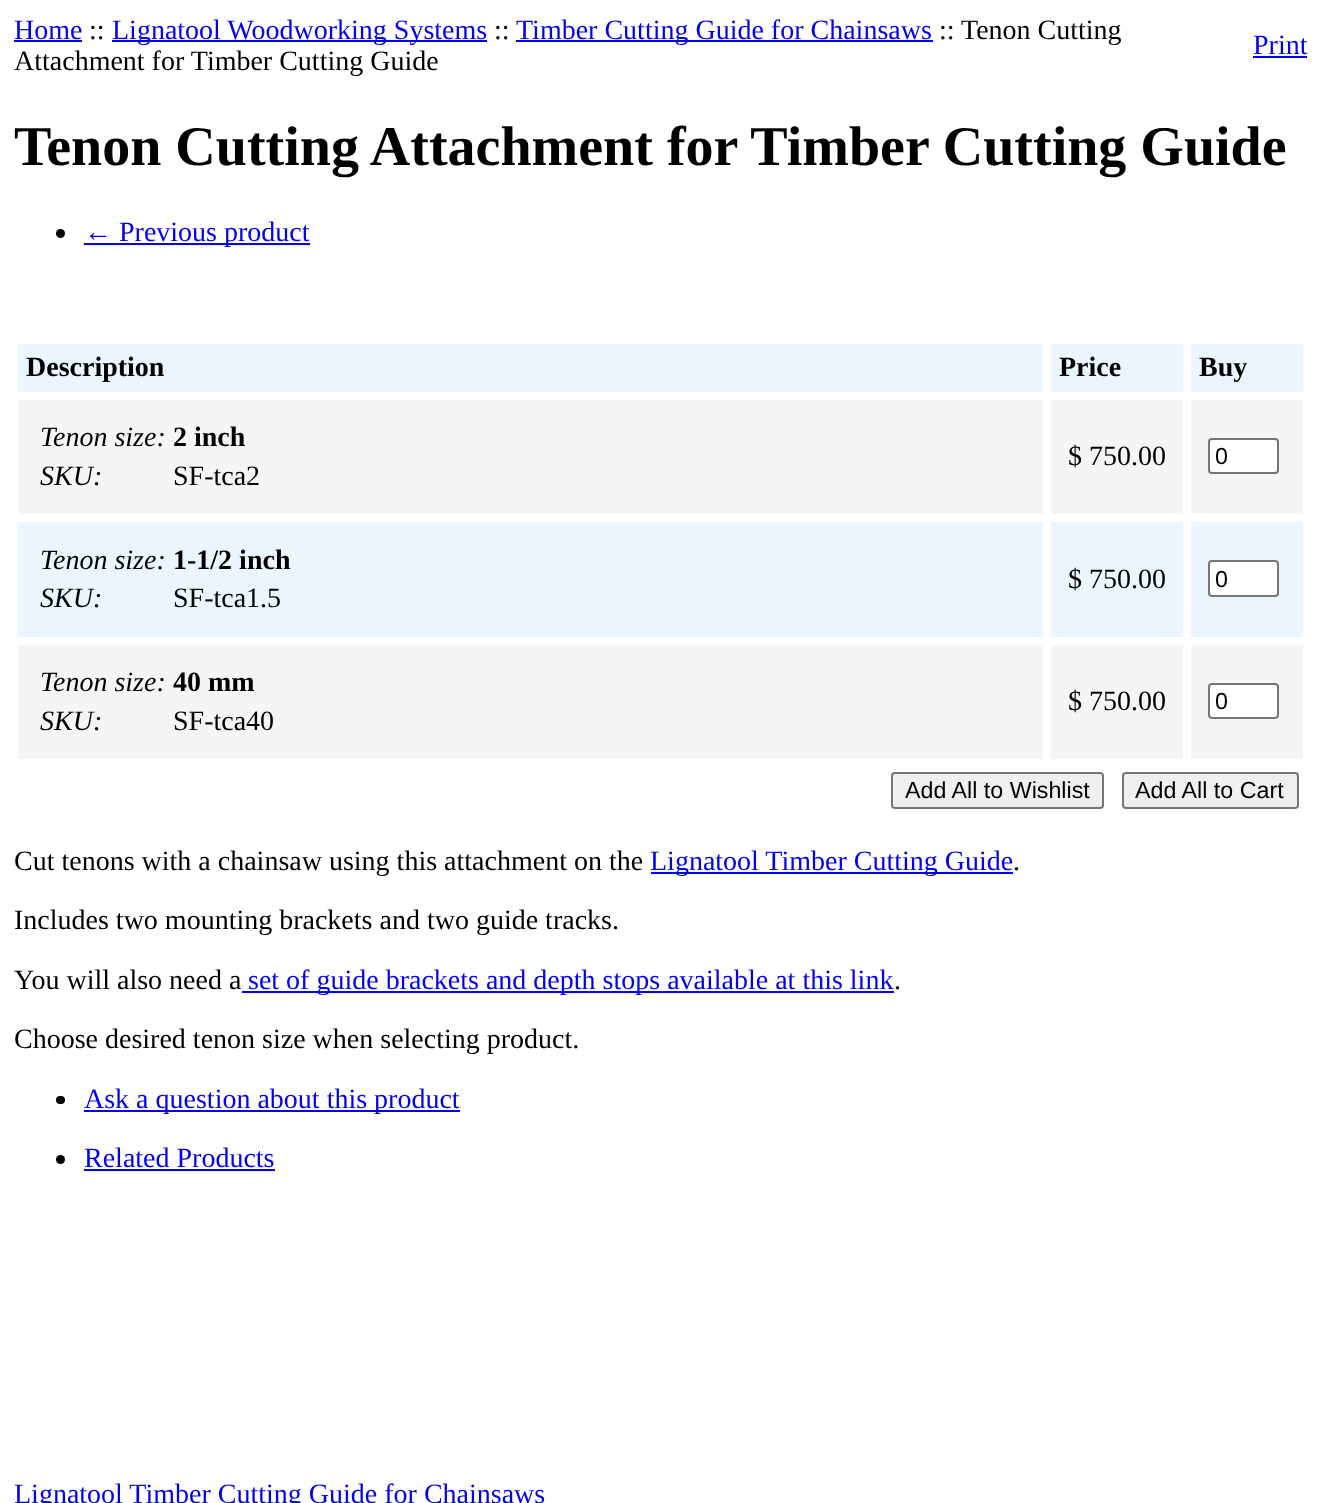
<svg xmlns="http://www.w3.org/2000/svg" width="1321" height="1503">
<style>
.a{font:28px Liberation Serif;fill:#00e}
.b{font:28px Liberation Serif;fill:#000}
.c{font:bold 56px Liberation Serif;fill:#000}
.d{font:bold 28px Liberation Serif;fill:#000}
.e{font:italic 28px Liberation Serif;fill:#000}
.f{font:23.25px Liberation Sans;fill:#000}
</style>
<rect width="100%" height="100%" fill="#fff"/>
<path fill="#00e" d="M14 40h68v2H14z"/>
<path fill="#00e" d="M112 40h375v2H112z"/>
<path fill="#00e" d="M516 40h417v2H516z"/>
<path fill="#00e" d="M1253 56h54v2H1253z"/>
<circle fill="#000" cx="60.5" cy="233.5" r="4.5"/>
<path fill="#00e" d="M84 243h226v2H84z"/>
<path fill="#eaf5ff" d="M18 344h1025v48H18z"/>
<path fill="#eaf5ff" d="M1051 344h132v48H1051z"/>
<path fill="#eaf5ff" d="M1191 344h112v48H1191z"/>
<path fill="#f5f5f5" d="M18 400h1025v114H18z"/>
<path fill="#f5f5f5" d="M1051 400h132v114H1051z"/>
<path fill="#f5f5f5" d="M1191 400h112v114H1191z"/>
<rect fill="#fff" stroke="#767676" stroke-width="2" x="1209" y="439" width="69" height="34" rx="3"/>
<path fill="#eaf5ff" d="M18 522h1025v115H18z"/>
<path fill="#eaf5ff" d="M1051 522h132v115H1051z"/>
<path fill="#eaf5ff" d="M1191 522h112v115H1191z"/>
<rect fill="#fff" stroke="#767676" stroke-width="2" x="1209" y="561" width="69" height="35" rx="3"/>
<path fill="#f5f5f5" d="M18 645h1025v114H18z"/>
<path fill="#f5f5f5" d="M1051 645h132v114H1051z"/>
<path fill="#f5f5f5" d="M1191 645h112v114H1191z"/>
<rect fill="#fff" stroke="#767676" stroke-width="2" x="1209" y="684" width="69" height="34" rx="3"/>
<rect fill="#efefef" stroke="#767676" stroke-width="2" x="892" y="773" width="211" height="35" rx="3"/>
<rect fill="#efefef" stroke="#767676" stroke-width="2" x="1123" y="773" width="175" height="35" rx="3"/>
<path fill="#00e" d="M651 872h362v2H651z"/>
<path fill="#00e" d="M242 991h652v2H242z"/>
<rect fill="#000" x="56" y="1096" width="9" height="8" rx="4"/>
<path fill="#00e" d="M84 1110h376v2H84z"/>
<circle fill="#000" cx="60.5" cy="1159.5" r="4.5"/>
<path fill="#00e" d="M84 1169h191v2H84z"/>
<text class="a" x="14" y="39">Home</text>
<text class="b" x="89" y="39">::</text>
<text class="a" x="112" y="39">Lignatool Woodworking Systems</text>
<text class="b" x="494" y="39">::</text>
<text class="a" x="516" y="39">Timber Cutting Guide for Chainsaws</text>
<text class="b" x="939" y="39">::</text>
<text class="b" x="961" y="39">Tenon Cutting</text>
<text class="b" x="14" y="70">Attachment for Timber Cutting Guide</text>
<text class="a" x="1253" y="54">Print</text>
<text class="c" x="14" y="165">Tenon Cutting Attachment for Timber Cutting Guide</text>
<text class="a" x="84" y="241">← Previous product</text>
<text class="d" x="26" y="376">Description</text>
<text class="d" x="1059" y="376">Price</text>
<text class="d" x="1199" y="376">Buy</text>
<text class="e" x="40" y="446">Tenon size:</text>
<text class="d" x="173" y="446">2 inch</text>
<text class="e" x="40" y="485">SKU:</text>
<text class="b" x="173" y="485">SF-tca2</text>
<text class="b" x="1068" y="465">$ 750.00</text>
<text class="f" x="1215" y="464">0</text>
<text class="e" x="40" y="569">Tenon size:</text>
<text class="d" x="173" y="569">1-1/2 inch</text>
<text class="e" x="40" y="607">SKU:</text>
<text class="b" x="173" y="607">SF-tca1.5</text>
<text class="b" x="1068" y="588">$ 750.00</text>
<text class="f" x="1215" y="587">0</text>
<text class="e" x="40" y="691">Tenon size:</text>
<text class="d" x="173" y="691">40 mm</text>
<text class="e" x="40" y="730">SKU:</text>
<text class="b" x="173" y="730">SF-tca40</text>
<text class="b" x="1068" y="710">$ 750.00</text>
<text class="f" x="1215" y="709">0</text>
<text class="f" x="905" y="798">Add All to Wishlist</text>
<text class="f" x="1135" y="798">Add All to Cart</text>
<text class="b" x="14" y="870">Cut tenons with a chainsaw using this attachment on the</text>
<text class="a" x="650" y="870">Lignatool Timber Cutting Guide</text>
<text class="b" x="1013" y="870">.</text>
<text class="b" x="14" y="929">Includes two mounting brackets and two guide tracks.</text>
<text class="b" x="14" y="989">You will also need a</text>
<text class="a" x="248" y="989">set of guide brackets and depth stops available at this link</text>
<text class="b" x="894" y="989">.</text>
<text class="b" x="14" y="1048">Choose desired tenon size when selecting product.</text>
<text class="a" x="84" y="1108">Ask a question about this product</text>
<text class="a" x="84" y="1167">Related Products</text>
<text class="a" x="14" y="1503">Lignatool Timber Cutting Guide for Chainsaws</text>
</svg>
